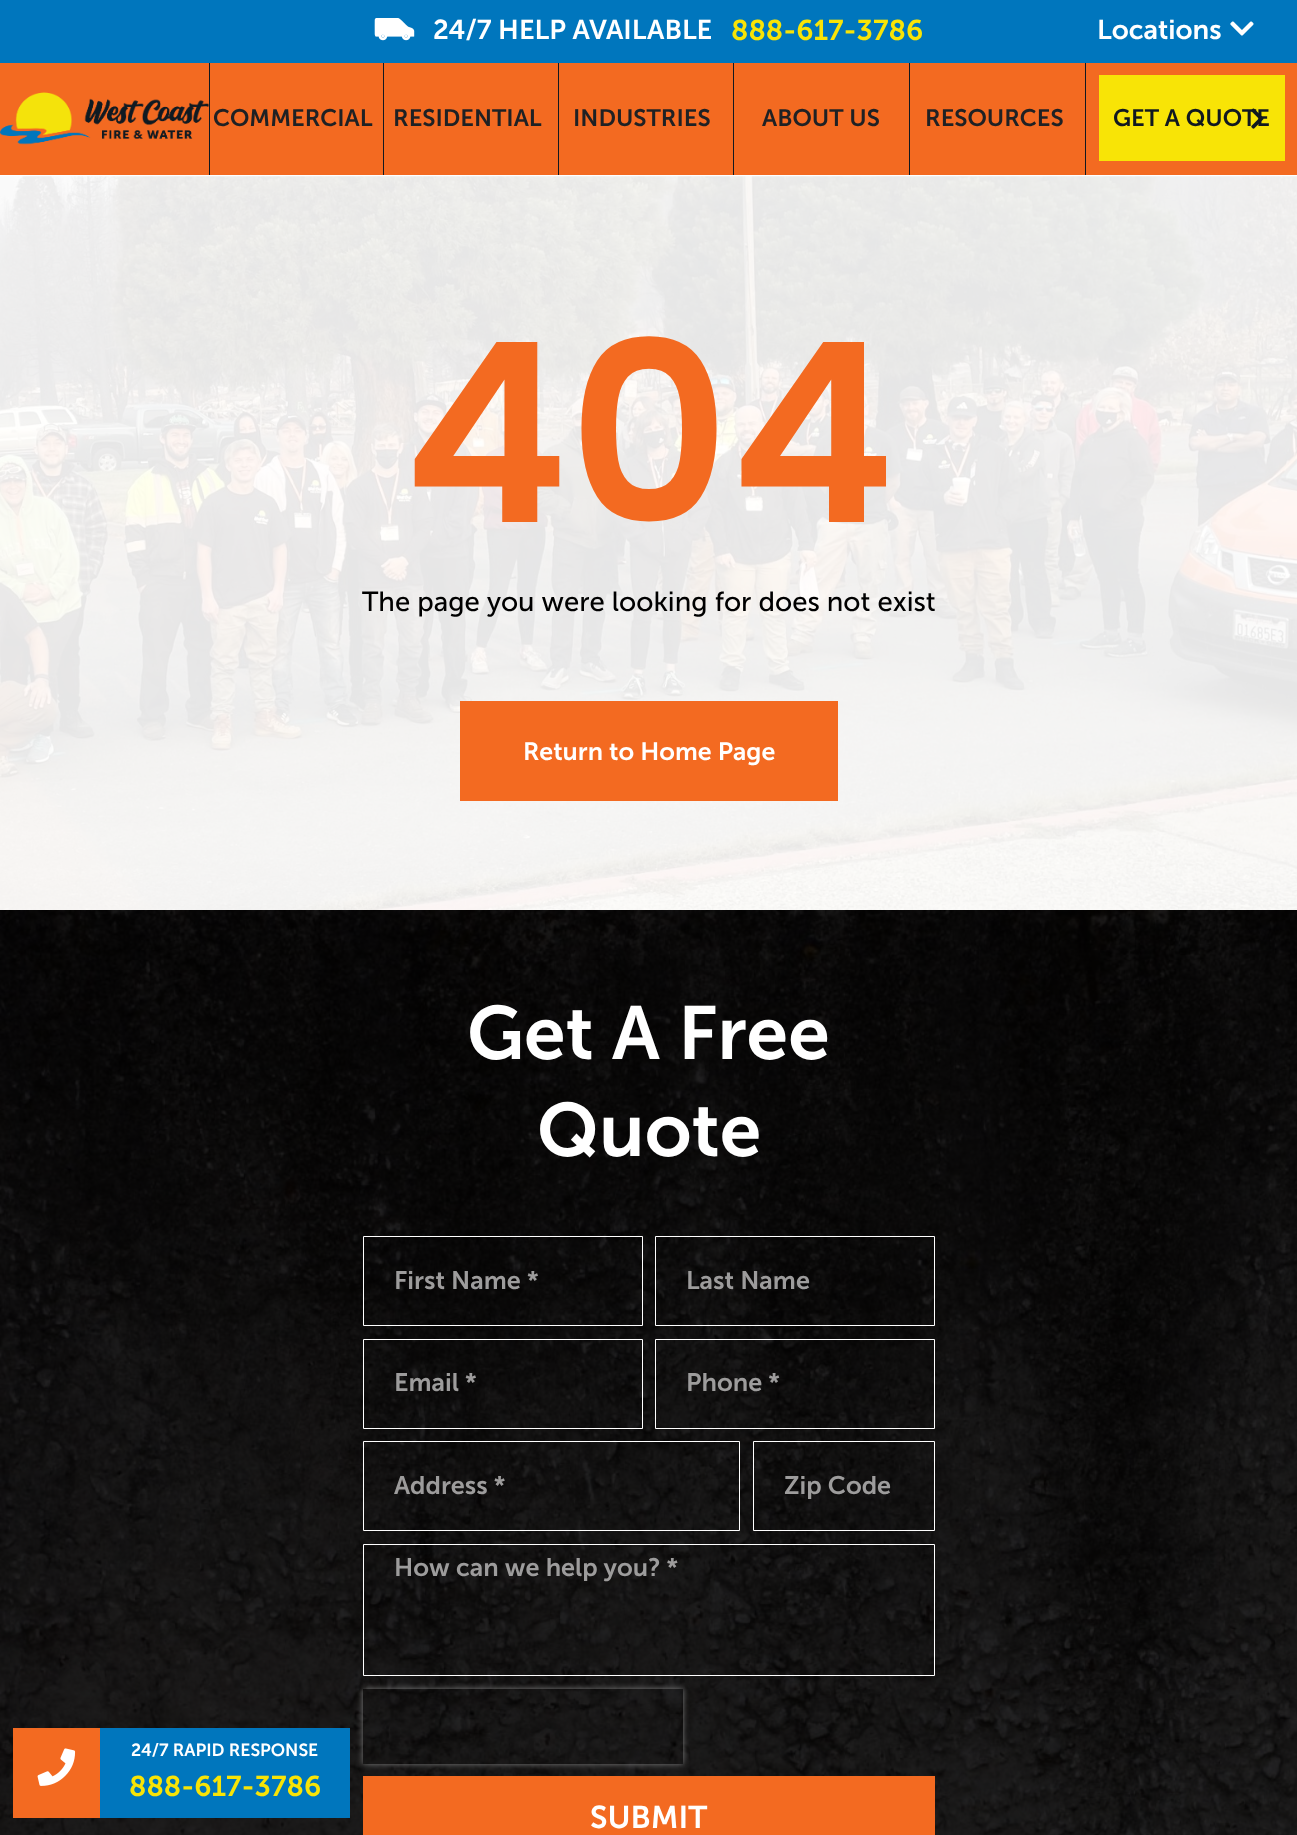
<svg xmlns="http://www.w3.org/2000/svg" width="1297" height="1835">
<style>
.a{font:600 27.25px Museo Sans;fill:#fff}
.b{font:600 28.5px Museo Sans;fill:#f8e406}
.c{font:600 23.75px Museo Sans;fill:#1f2124}
.d{font:600 23.75px Museo Sans;fill:#111820}
.e{font:600 250px Poppins;fill:#f36a21}
.f{font:27.5px Museo Sans;fill:#000}
.g{font:600 25px Museo Sans;fill:#fff}
.h{font:600 17.5px Museo Sans;fill:#fff}
.i{font:600 75px Museo Sans;fill:#fff}
.j{font:600 25.25px Museo Sans;fill:#9d9c9c}
.k{font:600 31.5px Museo Sans;fill:#fff}
</style>
<defs>
<clipPath id="clip1"><path d="M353 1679h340v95h-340zm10 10h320v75h-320z" clip-rule="evenodd"/></clipPath>
</defs>
<rect width="100%" height="100%" fill="#fff"/>
<path fill="#f36a21" d="M0 63h1297v112H0z"/>
<path fill="#111820" d="M383 61h1v114H383z"/>
<path fill="#111820" d="M209 61h1v114H209z"/>
<path fill="#111820" d="M558 61h1v114H558z"/>
<path fill="#111820" d="M733 61h1v114H733z"/>
<path fill="#111820" d="M1085 61h1v114H1085z"/>
<path fill="#111820" d="M909 61h1v114H909z"/>
<path fill="#0076bd" d="M0 0h1297v63H0z"/>
<image href="1.png" x="374" y="18" width="41" height="23"/>
<image href="2.png" x="1230" y="21" width="24" height="15"/>
<image href="3.png" x="0" y="92" width="209" height="53"/>
<path fill="#f8e406" d="M1099 75h186v86H1099z"/>
<image href="5.png" x="0" y="176" width="1297" height="734"/>
<path fill="#f36a21" d="M460 701h378v100H460z"/>
<image href="7.png" x="0" y="910" width="1297" height="925"/>
<path fill="#f36a21" d="M13 1728h87v90H13z"/>
<image href="6.png" x="37" y="1748" width="39" height="38"/>
<path fill="#0076bd" d="M100 1728h250v90H100z"/>
<path fill="none" stroke="#fff" d="M363.5 1236.5h279v89H363.5z"/>
<path fill="none" stroke="#fff" d="M655.5 1236.5h279v89H655.5z"/>
<path fill="none" stroke="#fff" d="M363.5 1339.5h279v89H363.5z"/>
<path fill="none" stroke="#fff" d="M655.5 1339.5h279v89H655.5z"/>
<path fill="none" stroke="#fff" d="M363.5 1441.5h376v89H363.5z"/>
<path fill="none" stroke="#fff" d="M753.5 1441.5h181v89H753.5z"/>
<path fill="none" stroke="#fff" d="M363.5 1544.5h571v131H363.5z"/>
<g clip-path="url(#clip1)">
<path fill="#808080" filter="blur(3px)" d="M363 1689h320v75H363z"/>
</g>
<path fill="#f36a21" d="M363 1776h572v59H363z"/>
<text class="a" x="433" y="39">24/7 HELP AVAILABLE</text>
<text class="b" x="731" y="40">888-617-3786</text>
<text class="a" x="1097" y="39">Locations</text>
<text class="c" x="213" y="126">COMMERCIAL</text>
<text class="c" x="393" y="126">RESIDENTIAL</text>
<text class="c" x="573" y="126">INDUSTRIES</text>
<text class="c" x="762" y="126">ABOUT US</text>
<text class="c" x="925" y="126">RESOURCES</text>
<text class="d" x="1113" y="126">GET A QUOTE</text>
<image href="4.png" x="1251" y="108" width="13" height="21"/>
<text class="e" x="403" y="522">404</text>
<text class="f" x="362" y="611">The page you were looking for does not exist</text>
<text class="g" x="523" y="760">Return to Home Page</text>
<text class="h" x="131" y="1756">24/7 RAPID RESPONSE</text>
<text class="b" x="129" y="1796">888-617-3786</text>
<text class="i" x="467" y="1059">Get A Free</text>
<text class="i" x="537" y="1156">Quote</text>
<text class="j" x="394" y="1289">First Name *</text>
<text class="j" x="686" y="1289">Last Name</text>
<text class="j" x="394" y="1391">Email *</text>
<text class="j" x="686" y="1391">Phone *</text>
<text class="j" x="394" y="1494">Address *</text>
<text class="j" x="784" y="1494">Zip Code</text>
<text class="j" x="394" y="1576">How can we help you? *</text>
<text class="k" x="590" y="1828">SUBMIT</text>
</svg>
